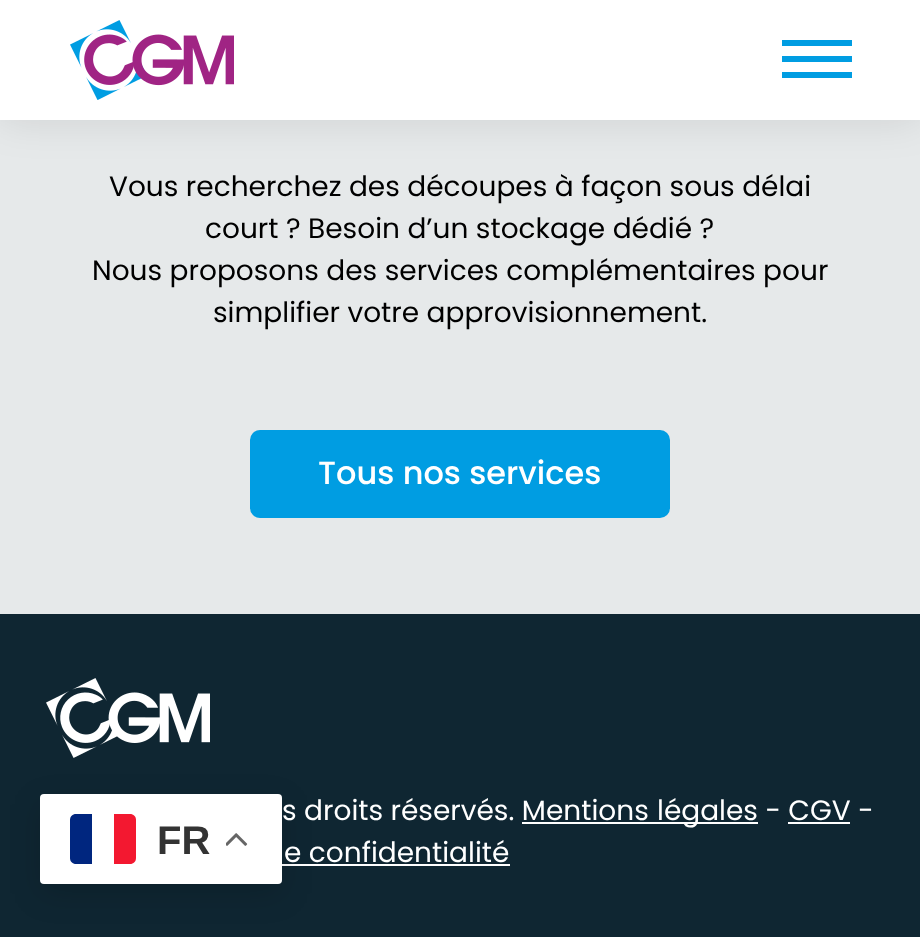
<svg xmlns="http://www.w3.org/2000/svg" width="920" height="937">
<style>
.a{font:28px Poppins;fill:#000}
.b{font:500 32px Poppins;fill:#fff}
.c{font:28px Poppins;fill:#fff}
.d{font:bold 40px Liberation Sans;fill:#333}
</style>
<rect width="100%" height="100%" fill="#e6e9ea"/>
<path fill="#0000001a" filter="blur(20px)" d="M0 0h920v120H0z"/>
<path fill="#fff" d="M0 0h920v120H0z"/>
<image href="1.png" x="70" y="20" width="164" height="80"/>
<path fill="#009de2" d="M782 40h70v6H782z"/>
<path fill="#009de2" d="M782 56h70v6H782z"/>
<path fill="#009de2" d="M782 72h70v6H782z"/>
<rect fill="#009de2" stroke="#009de2" stroke-width="4" x="252" y="432" width="416" height="84" rx="8"/>
<path fill="#0f2632" d="M0 614h920v323H0z"/>
<image href="2.png" x="46" y="678" width="164" height="80"/>
<path fill="#fff" d="M522 822h236v2H522z"/>
<path fill="#fff" d="M788 822h62v2H788z"/>
<path fill="#fff" d="M282 864h228v2H282z"/>
<rect fill="#00000026" filter="blur(15px)" x="40" y="804" width="242" height="90" rx="4"/>
<rect fill="#fff" x="40" y="794" width="242" height="90" rx="4"/>
<path fill="#00267f" d="M76 814h16v50h-16c-3.5 0-6-2.5-6-6v-38c0-3.5 2.5-6 6-6z"/>
<path fill="#f31830" d="M114 814h16c3.5 0 6 2.5 6 6v38c0 3.5-2.5 6-6 6h-16z"/>
<image href="3.png" x="226" y="833" width="22" height="13"/>
<text class="a" x="109" y="196">Vous recherchez des découpes à façon sous délai</text>
<text class="a" x="205" y="238">court ? Besoin d’un stockage dédié ?</text>
<text class="a" x="92" y="280">Nous proposons des services complémentaires pour</text>
<text class="a" x="213" y="322">simplifier votre approvisionnement.</text>
<text class="b" x="318" y="484">Tous nos services</text>
<text class="c" x="282" y="820">s droits réservés. Mentions</text>
<text class="c" x="657" y="820">légales - CGV -</text>
<text class="c" x="284" y="862">e confidentialité</text>
<text class="d" x="157" y="854">FR</text>
</svg>
